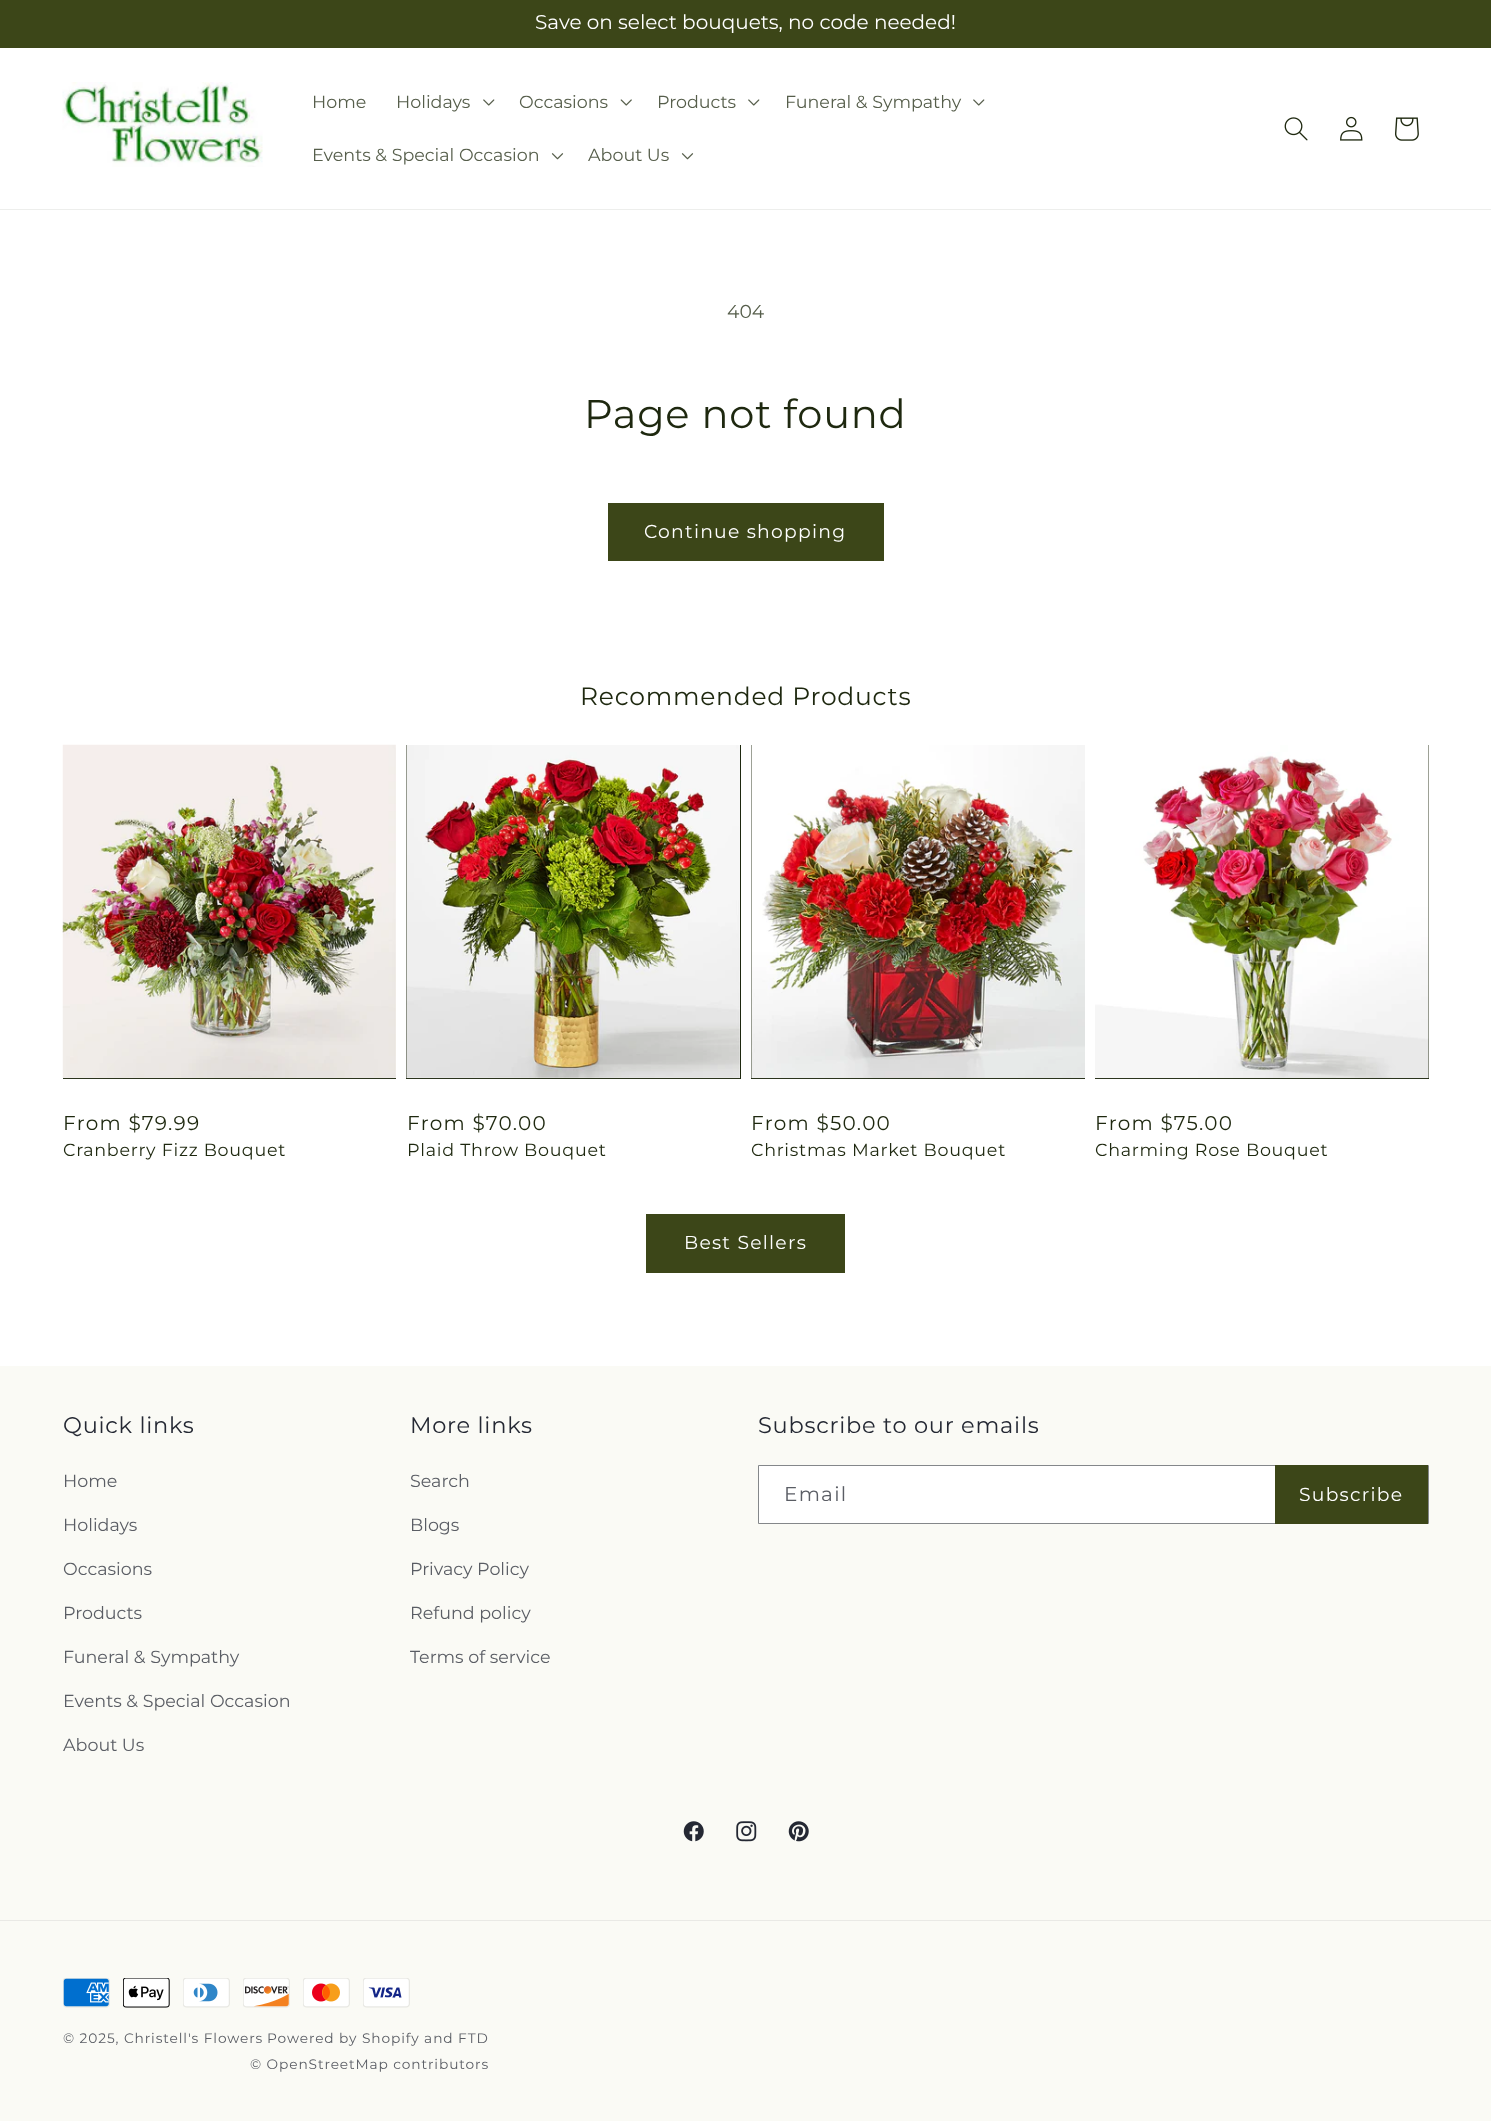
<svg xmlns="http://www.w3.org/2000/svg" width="1491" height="2121">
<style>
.a{font:20px Montserrat;fill:#fff}
.b{font:17.5px Montserrat;fill:#565e4b}
.c{font:18.75px Montserrat;fill:#565e4b}
.d{font:40px Montserrat;letter-spacing:0.75px;fill:#1e280f}
.e{font:18.75px Montserrat;letter-spacing:1.25px;fill:#fff}
.f{font:25px Montserrat;letter-spacing:0.75px;fill:#1e280f}
.g{font:20px Montserrat;letter-spacing:1.25px;fill:#1e280f}
.h{font:17.5px Montserrat;letter-spacing:0.75px;fill:#1e280f}
.i{font:22.5px Montserrat;letter-spacing:0.75px;fill:#242833}
.j{font:17.5px Montserrat;fill:#5a5d64}
.k{font:20px Montserrat;letter-spacing:1.25px;fill:#5a5d64}
.l{font:13.75px Montserrat;letter-spacing:0.9px;fill:#5a5d64}
</style>
<rect width="100%" height="100%" fill="#fff"/>
<path fill="#3c4618" d="M0 0h1491v48H0z"/>
<path fill="#edeeec" d="M0 209h1491v1H0z"/>
<image href="1.png" x="62" y="82" width="201" height="85"/>
<image href="2.png" x="483" y="99" width="12" height="7"/>
<image href="3.png" x="620" y="99" width="12" height="7"/>
<image href="2.png" x="748" y="99" width="12" height="7"/>
<image href="2.png" x="973" y="99" width="12" height="7"/>
<image href="4.png" x="551" y="153" width="13" height="7"/>
<image href="4.png" x="681" y="153" width="13" height="7"/>
<image href="5.png" x="1284" y="117" width="24" height="24"/>
<image href="6.png" x="1340" y="116" width="23" height="25"/>
<image href="7.png" x="1395" y="117" width="24" height="24"/>
<path fill="#3c4618" d="M608 503h276v58H608z"/>
<path fill="#1e280f" d="M63 1078h333v1H63z"/>
<image href="8.png" x="62" y="744" width="334" height="335"/>
<path fill="#1e280f" d="M406 745h335v334H406z"/>
<image href="9.png" x="406" y="745" width="334" height="334"/>
<path fill="#1e280f" d="M751 745h334v334H751z"/>
<image href="10.png" x="751" y="745" width="334" height="334"/>
<path fill="#1e280f" d="M1095 745h334v334H1095z"/>
<image href="11.png" x="1095" y="745" width="334" height="334"/>
<path fill="#3c4618" d="M646 1214h199v59H646z"/>
<path fill="#fafaf5" d="M0 1366h1491v755H0z"/>
<path fill="#fff" d="M759 1466h516v57H759z"/>
<path fill="none" stroke="#84878a" d="M758.5 1465.5h670v58H758.5z"/>
<path fill="#3c4618" d="M1275 1465h153v59H1275z"/>
<image href="12.png" x="683" y="1821" width="21" height="21"/>
<image href="13.png" x="736" y="1821" width="21" height="21"/>
<image href="14.png" x="788" y="1821" width="21" height="21"/>
<path fill="#e9e9e5" d="M0 1920h1491v1H0z"/>
<image href="15.png" x="63" y="1978" width="47" height="30"/>
<image href="16.png" x="123" y="1978" width="47" height="30"/>
<image href="17.png" x="183" y="1978" width="47" height="30"/>
<image href="18.png" x="243" y="1978" width="47" height="30"/>
<image href="19.png" x="303" y="1978" width="47" height="30"/>
<image href="20.png" x="363" y="1978" width="47" height="30"/>
<text class="a" x="535" y="29">Save on select bouquets, no code needed!</text>
<text class="b" x="312" y="108">Home</text>
<text class="b" x="396" y="108">Holidays</text>
<text class="b" x="519" y="108">Occasions</text>
<text class="b" x="657" y="108">Products</text>
<text class="b" x="785" y="108">Funeral &amp; Sympathy</text>
<text class="b" x="312" y="161">Events &amp; Special Occasion</text>
<text class="b" x="588" y="161">About Us</text>
<text class="c" x="727" y="318">404</text>
<text class="d" x="584" y="428">Page not found</text>
<text class="e" x="644" y="538">Continue shopping</text>
<text class="f" x="580" y="705">Recommended Products</text>
<text class="g" x="63" y="1130">From $79.99</text>
<text class="h" x="63" y="1156">Cranberry Fizz Bouquet</text>
<text class="g" x="407" y="1130">From $70.00</text>
<text class="h" x="407" y="1156">Plaid Throw Bouquet</text>
<text class="g" x="751" y="1130">From $50.00</text>
<text class="h" x="751" y="1156">Christmas Market Bouquet</text>
<text class="g" x="1095" y="1130">From $75.00</text>
<text class="h" x="1095" y="1156">Charming Rose Bouquet</text>
<text class="e" x="684" y="1249">Best Sellers</text>
<text class="i" x="63" y="1433">Quick links</text>
<text class="j" x="63" y="1487">Home</text>
<text class="j" x="63" y="1531">Holidays</text>
<text class="j" x="63" y="1575">Occasions</text>
<text class="j" x="63" y="1619">Products</text>
<text class="j" x="63" y="1663">Funeral &amp; Sympathy</text>
<text class="j" x="63" y="1707">Events &amp; Special Occasion</text>
<text class="j" x="63" y="1751">About Us</text>
<text class="i" x="410" y="1433">More links</text>
<text class="j" x="410" y="1487">Search</text>
<text class="j" x="410" y="1531">Blogs</text>
<text class="j" x="410" y="1575">Privacy Policy</text>
<text class="j" x="410" y="1619">Refund policy</text>
<text class="j" x="410" y="1663">Terms of service</text>
<text class="i" x="758" y="1433">Subscribe to our emails</text>
<text class="k" x="784" y="1501">Email</text>
<text class="e" x="1299" y="1501">Subscribe</text>
<text class="l" x="63" y="2043">© 2025, Christell's Flowers</text>
<text class="l" x="267" y="2043">Powered by Shopify and FTD</text>
<text class="l" x="250" y="2069">© OpenStreetMap contributors</text>
</svg>
